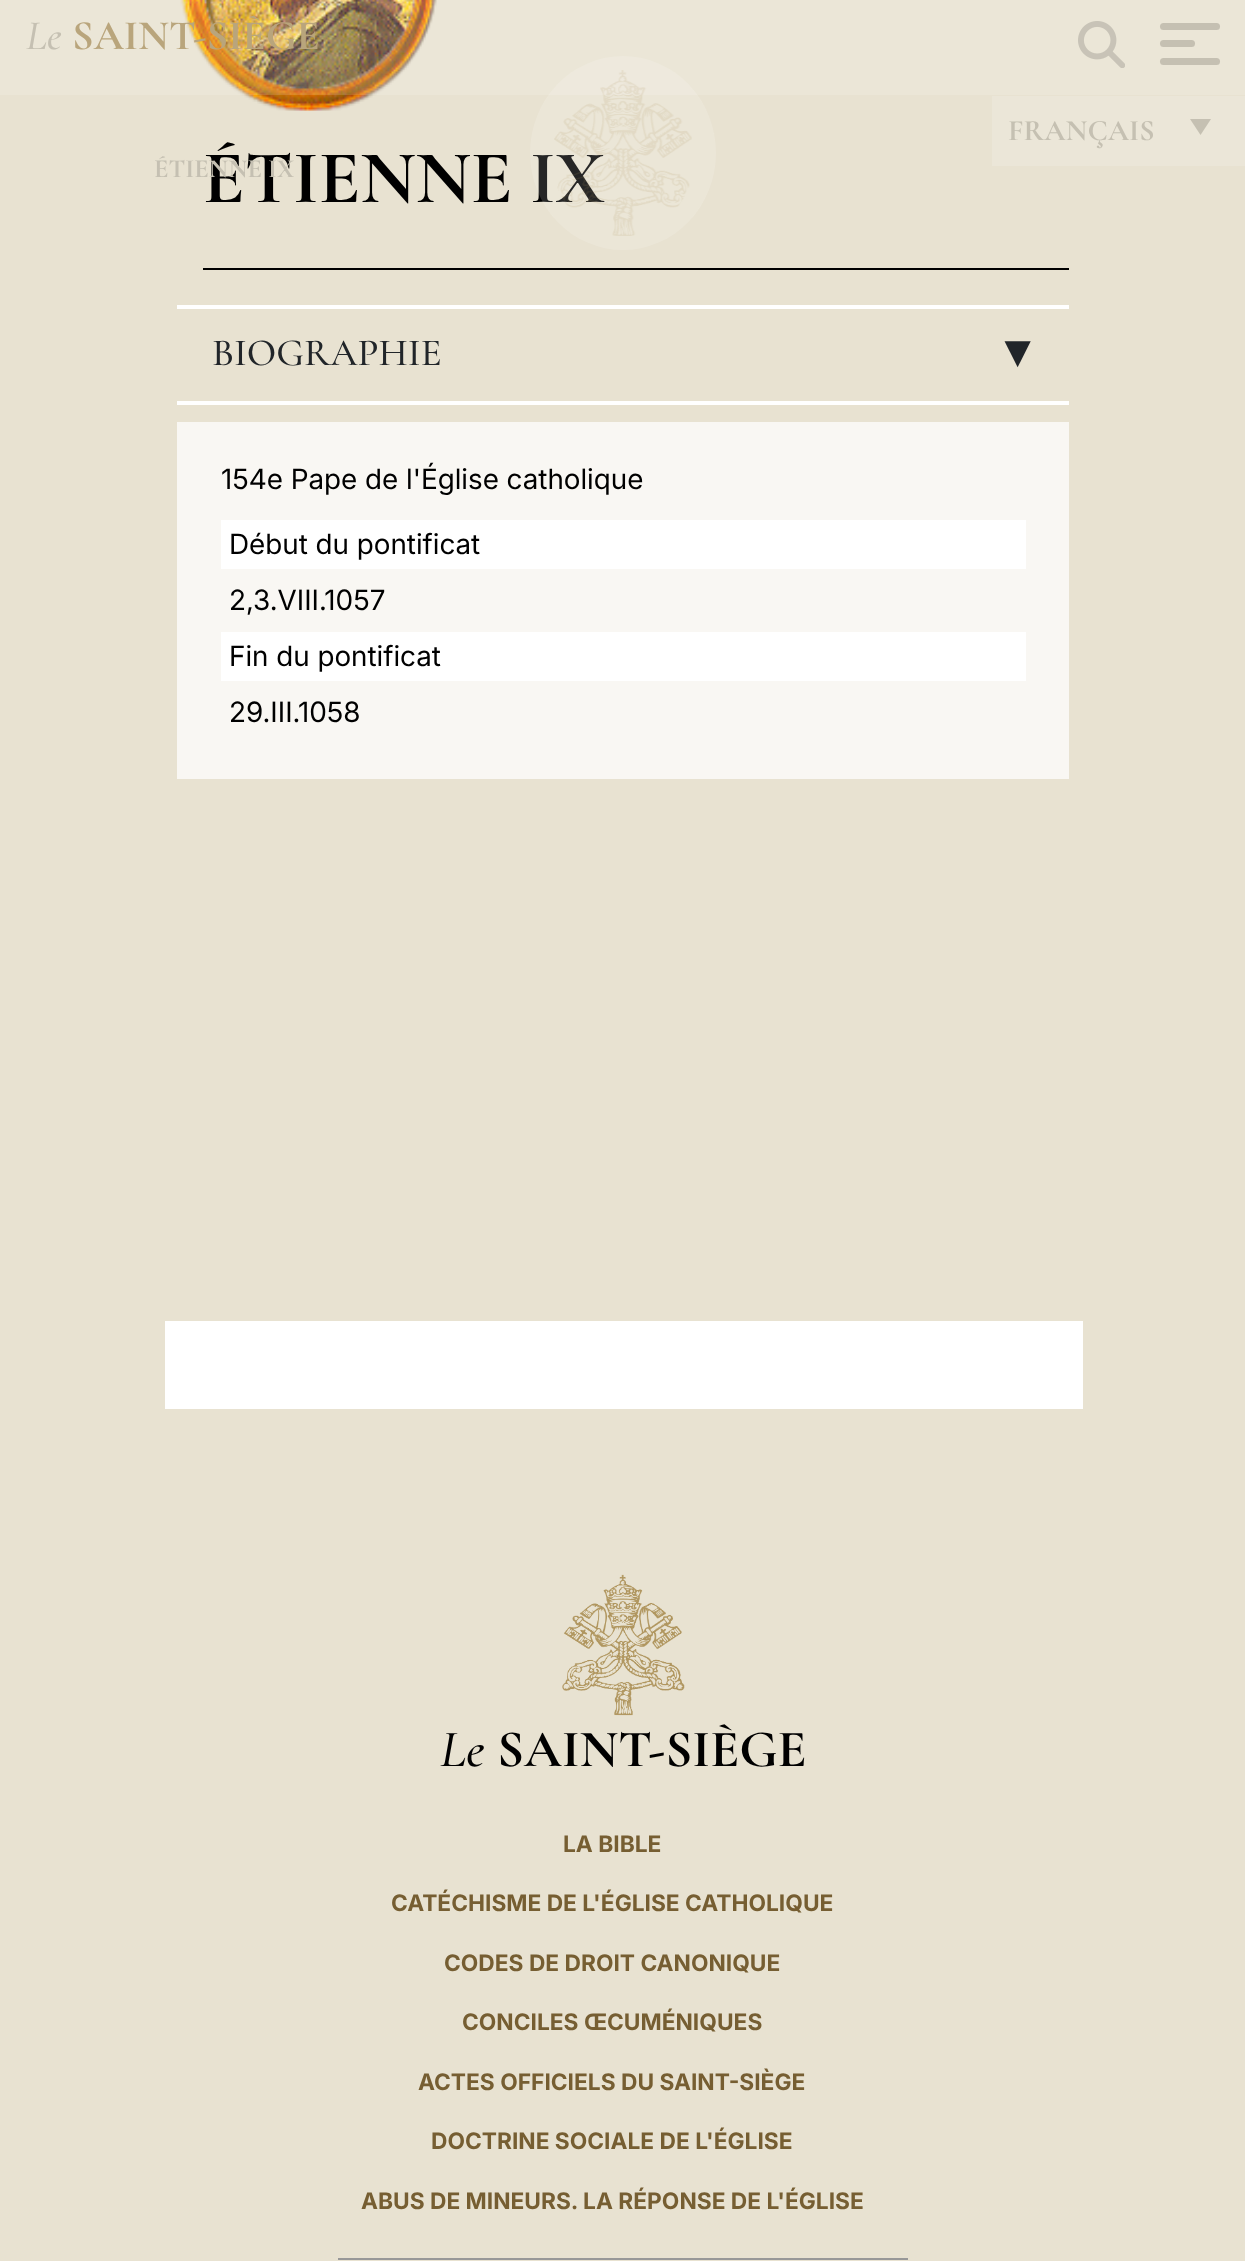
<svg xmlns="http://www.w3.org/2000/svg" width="1245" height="2261">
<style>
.a{font:italic 500 42px Cormorant Garamond;fill:#c5c0b2}
.b{font:bold 42px Cormorant Garamond;fill:#b9a57c}
.c{font:bold 29.75px Cormorant Garamond;fill:#c5c0b2}
.d{font:bold 75.25px Cormorant Garamond;fill:#000}
.e{font:bold 26.25px Cormorant Garamond;fill:#c5c0b2}
.f{font:500 38.5px Cormorant Garamond;fill:#212529}
.g{font:52.5px DejaVu Sans;fill:#212529}
.h{font:28px Inter;fill:#000}
.i{font:italic 500 52.5px Cormorant Garamond;fill:#000}
.j{font:bold 52.5px Cormorant Garamond;fill:#000}
.k{font:bold 22.75px Inter;fill:#765e32}
</style>
<rect width="100%" height="100%" fill="#e8e2d1"/>
<image href="3.png" x="180" y="0" width="257" height="111"/>
<path fill="#ffffff26" d="M0 0h1245v95H0z"/>
<image href="2.png" x="1078" y="21" width="47" height="47"/>
<rect fill="#c5c0b2" x="1160" y="23" width="60" height="7" rx="3.5"/>
<rect fill="#c5c0b2" x="1160" y="40" width="35" height="7" rx="3.5"/>
<rect fill="#c5c0b2" x="1160" y="58" width="60" height="7" rx="3.5"/>
<path fill="#ebe6d8" d="M992 96h253v70H992z"/>
<path fill="#c5c0b2" d="M1190 119h21l-10.5 16z"/>
<path fill="#000" d="M203 268h866v2H203z"/>
<path fill="#fff" d="M177 305h892v4H177z"/>
<path fill="#fff" d="M177 401h892v4H177z"/>
<path fill="#f9f7f3" d="M177 422h892v357H177z"/>
<path fill="#fff" d="M221 520h805v49H221z"/>
<path fill="#fff" d="M221 632h805v49H221z"/>
<path fill="#fff" d="M165 1321h918v88H165z"/>
<image href="4.png" x="562" y="1574" width="123" height="142"/>
<path fill="#989898" d="M338 2258h570v2H338z"/>
<text class="a" x="26" y="49">Le</text>
<text class="b" x="72" y="49">SAINT-SIÈGE</text>
<text class="c" x="1008" y="140">FRANÇAIS</text>
<text class="d" x="203" y="202">ÉTIENNE IX</text>
<ellipse fill="#ffffff26" cx="623" cy="153" rx="93" ry="97"/>
<image href="1.png" x="554" y="70" width="138" height="166"/>
<text class="e" x="154" y="177">ÉTIENNE IX</text>
<text class="f" x="212" y="365">BIOGRAPHIE</text>
<text class="g" x="1004" y="341" transform="rotate(90 1004 341)">▸</text>
<text class="h" x="221" y="489">154e Pape de l'Église catholique</text>
<text class="h" x="229" y="554">Début du pontificat</text>
<text class="h" x="229" y="610">2,3.VIII.1057</text>
<text class="h" x="229" y="666">Fin du pontificat</text>
<text class="h" x="229" y="722">29.III.1058</text>
<text class="i" x="440" y="1766">Le</text>
<text class="j" x="497" y="1766">SAINT-SIÈGE</text>
<text class="k" x="563" y="1852">LA BIBLE</text>
<text class="k" x="391" y="1911">CATÉCHISME DE L'ÉGLISE CATHOLIQUE</text>
<text class="k" x="444" y="1971">CODES DE DROIT CANONIQUE</text>
<text class="k" x="462" y="2030">CONCILES ŒCUMÉNIQUES</text>
<text class="k" x="418" y="2090">ACTES OFFICIELS DU SAINT-SIÈGE</text>
<text class="k" x="431" y="2149">DOCTRINE SOCIALE DE L'ÉGLISE</text>
<text class="k" x="361" y="2209">ABUS DE MINEURS. LA RÉPONSE DE L'ÉGLISE</text>
</svg>
